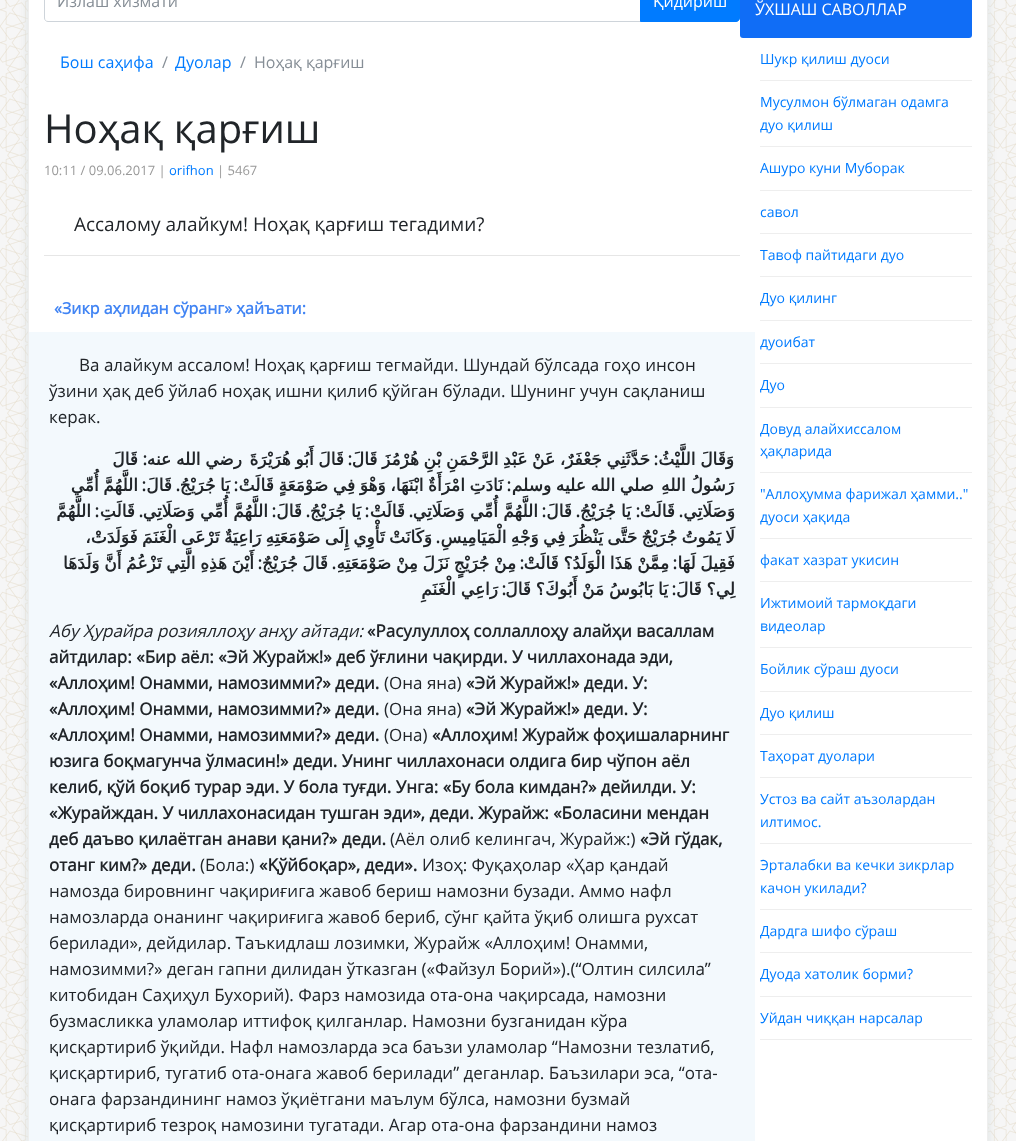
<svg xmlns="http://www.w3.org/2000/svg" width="1016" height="1141">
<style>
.a{font:16px Open Sans;fill:#868e96}
.b{font:16px Open Sans;fill:#fff}
.c{font:16px Open Sans;fill:#007bff}
.d{font:40px Open Sans;fill:#212529}
.e{font:13px Open Sans;fill:#999}
.f{font:13px Open Sans;fill:#007bff}
.g{font:19px Open Sans;fill:#212529}
.h{font:bold 16px Open Sans;fill:#4285f4}
.i{font:17px Open Sans;fill:#212529}
.j{font:bold 17px DejaVu Sans;direction:rtl;fill:#212529}
.k{font:bold 17px Open Sans;direction:rtl;fill:#212529}
.l{font:italic 17px Open Sans;fill:#212529}
.m{font:bold 17px Open Sans;fill:#212529}
.n{font:14px Open Sans;fill:#007bff}
</style>
<rect width="100%" height="100%" fill="#f2f2f2"/>
<image href="1.png" x="0" y="0" width="1016" height="1141"/>
<path fill="#dce2e3" filter="blur(5px)" d="M28 -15h960v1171H28z"/>
<path fill="#fff" stroke="#eee" d="M28.5 -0.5h959v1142H28.5z"/>
<path fill="none" stroke="#ced4da" d="M48-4.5h592.5v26h-592.5c-2 0-3.5-1.5-3.5-3.5v-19c0-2 1.5-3.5 3.5-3.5z"/>
<path fill="#007bff" stroke="#007bff" d="M640.5-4.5h95.5c2 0 3.5 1.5 3.5 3.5v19c0 2-1.5 3.5-3.5 3.5h-95.5z"/>
<path fill="#e6e6e6" d="M44 255h696v1H44z"/>
<path fill="#f3f9fd" d="M29 332h726v809H29z"/>
<rect fill="#106df6" x="740" y="-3" width="232" height="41" rx="3"/>
<path fill="#eee" d="M760 80h212v1H760z"/>
<path fill="#eee" d="M760 146h212v1H760z"/>
<path fill="#eee" d="M760 190h212v1H760z"/>
<path fill="#eee" d="M760 233h212v1H760z"/>
<path fill="#eee" d="M760 276h212v1H760z"/>
<path fill="#eee" d="M760 320h212v1H760z"/>
<path fill="#eee" d="M760 363h212v1H760z"/>
<path fill="#eee" d="M760 407h212v1H760z"/>
<path fill="#eee" d="M760 472h212v1H760z"/>
<path fill="#eee" d="M760 538h212v1H760z"/>
<path fill="#eee" d="M760 581h212v1H760z"/>
<path fill="#eee" d="M760 647h212v1H760z"/>
<path fill="#eee" d="M760 691h212v1H760z"/>
<path fill="#eee" d="M760 734h212v1H760z"/>
<path fill="#eee" d="M760 777h212v1H760z"/>
<path fill="#eee" d="M760 843h212v1H760z"/>
<path fill="#eee" d="M760 909h212v1H760z"/>
<path fill="#eee" d="M760 952h212v1H760z"/>
<path fill="#eee" d="M760 996h212v1H760z"/>
<path fill="#eee" d="M760 1039h212v1H760z"/>
<text class="a" x="57" y="7">Излаш хизмати</text>
<text class="b" x="653" y="7">Қидириш</text>
<text class="c" x="60" y="68">Бош саҳифа</text>
<text class="a" x="162" y="68">/</text>
<text class="c" x="175" y="68">Дуолар</text>
<text class="a" x="240" y="68">/</text>
<text class="a" x="254" y="68">Ноҳақ қарғиш</text>
<text class="d" x="44" y="143">Ноҳақ қарғиш</text>
<text class="e" x="44" y="175">10:11 / 09.06.2017 |</text>
<text class="f" x="169" y="175">orifhon</text>
<text class="e" x="217" y="175">| 5467</text>
<text class="g" x="74" y="231">Ассалому алайкум! Ноҳақ қарғиш тегадими?</text>
<text class="h" x="54" y="314">«Зикр аҳлидан сўранг» ҳайъати:</text>
<text class="i" x="79" y="371">Ва алайкум ассалом! Ноҳақ қарғиш тегмайди. Шундай бўлсада гоҳо инсон</text>
<text class="i" x="49" y="397">ўзини ҳақ деб ўйлаб ноҳақ ишни қилиб қўйган бўлади. Шунинг учун сақланиш</text>
<text class="i" x="49" y="423">керак.</text>
<text class="j" x="138" y="465">قَالَ</text>
<text class="k" x="147" y="465">:</text>
<text class="j" x="242" y="465" word-spacing="-0.75">رضي الله عنه</text>
<text class="j" x="344" y="465" word-spacing="-0.75">قَالَ أَبُو هُرَيْرَةَ</text>
<text class="k" x="352" y="465">:</text>
<text class="j" x="650" y="465" word-spacing="-0.75">حَدَّثَنِي جَعْفَرٌ، عَنْ عَبْدِ الرَّحْمَنِ بْنِ هُرْمُزَ قَالَ</text>
<text class="k" x="658" y="465">:</text>
<text class="j" x="734" y="465" word-spacing="-0.75">وَقَالَ اللَّيْثُ</text>
<text class="j" x="138" y="491" word-spacing="-0.75">اللَّهُمَّ أُمِّي</text>
<text class="k" x="146" y="491">:</text>
<text class="j" x="172" y="491">قَالَ</text>
<text class="k" x="180" y="491">.</text>
<text class="j" x="230" y="491" word-spacing="-0.75">يَا جُرَيْجُ</text>
<text class="k" x="238" y="491">:</text>
<text class="j" x="503" y="491" word-spacing="-0.75">نَادَتِ امْرَأَةٌ ابْنَهَا، وَهْوَ فِي صَوْمَعَةٍ قَالَتْ</text>
<text class="k" x="511" y="491">:</text>
<text class="j" x="654" y="491" word-spacing="-0.75">صلي الله عليه وسلم</text>
<text class="j" x="734" y="491" word-spacing="-0.75">رَسُولُ اللهِ</text>
<text class="j" x="91" y="517">اللَّهُمَّ</text>
<text class="k" x="99" y="517">:</text>
<text class="j" x="135" y="517">قَالَتِ</text>
<text class="k" x="143" y="517">.</text>
<text class="j" x="268" y="517">اللَّهُمَّ أُمِّي وَصَلَاتِي</text>
<text class="k" x="276" y="517">:</text>
<text class="j" x="302" y="517">قَالَ</text>
<text class="k" x="310" y="517">.</text>
<text class="j" x="361" y="517">يَا جُرَيْجُ</text>
<text class="k" x="369" y="517">:</text>
<text class="j" x="405" y="517">قَالَتْ</text>
<text class="k" x="413" y="517">.</text>
<text class="j" x="538" y="517">اللَّهُمَّ أُمِّي وَصَلَاتِي</text>
<text class="k" x="546" y="517">:</text>
<text class="j" x="572" y="517">قَالَ</text>
<text class="k" x="580" y="517">.</text>
<text class="j" x="631" y="517">يَا جُرَيْجُ</text>
<text class="k" x="640" y="517">:</text>
<text class="j" x="675" y="517">قَالَتْ</text>
<text class="k" x="683" y="517">.</text>
<text class="j" x="735" y="517">وَصَلَاتِي</text>
<text class="j" x="432" y="543" word-spacing="-1">وَكَانَتْ تَأْوِي إِلَى صَوْمَعَتِهِ رَاعِيَةٌ تَرْعَى الْغَنَمَ فَوَلَدَتْ،</text>
<text class="j" x="735" y="543" word-spacing="-1">لَا يَمُوتُ جُرَيْجٌ حَتَّى يَنْظُرَ فِي وَجْهِ الْمَيَامِيسِ</text>
<text class="k" x="440" y="543">.</text>
<text class="j" x="254" y="569" word-spacing="-0.75">أَيْنَ هَذِهِ الَّتِي تَزْعُمُ أَنَّ وَلَدَهَا</text>
<text class="k" x="262" y="569">:</text>
<text class="j" x="328" y="569" word-spacing="-0.75">قَالَ جُرَيْجٌ</text>
<text class="k" x="336" y="569">.</text>
<text class="j" x="516" y="569" word-spacing="-0.75">مِنْ جُرَيْجٍ نَزَلَ مِنْ صَوْمَعَتِهِ</text>
<text class="k" x="524" y="569">:</text>
<text class="j" x="669" y="569" word-spacing="-0.75">مِمَّنْ هَذَا الْوَلَدُ؟ قَالَتْ</text>
<text class="k" x="677" y="569">:</text>
<text class="j" x="735" y="569" word-spacing="-0.75">فَقِيلَ لَهَا</text>
<text class="j" x="498" y="595" word-spacing="-0.5">رَاعِي الْغَنَمِ</text>
<text class="k" x="506" y="595">:</text>
<text class="j" x="668" y="595" word-spacing="-0.5">يَا بَابُوسُ مَنْ أَبُوكَ؟ قَالَ</text>
<text class="k" x="676" y="595">:</text>
<text class="j" x="735" y="595" word-spacing="-0.5">لِي؟ قَالَ</text>
<text class="l" x="49" y="637">Абу Ҳурайра розияллоҳу анҳу айтади:</text>
<text class="m" x="367" y="637">«Расулуллоҳ соллаллоҳу алайҳи васаллам</text>
<text class="m" x="49" y="663">айтдилар: «Бир аёл: «Эй Журайж!» деб ўғлини чақирди. У чиллахонада эди,</text>
<text class="m" x="49" y="689">«Аллоҳим! Онамми, намозимми?» деди.</text>
<text class="i" x="384" y="689">(Она яна)</text>
<text class="m" x="466" y="689">«Эй Журайж!» деди. У:</text>
<text class="m" x="49" y="715">«Аллоҳим! Онамми, намозимми?» деди.</text>
<text class="i" x="384" y="715">(Она яна)</text>
<text class="m" x="466" y="715">«Эй Журайж!» деди. У:</text>
<text class="m" x="49" y="741">«Аллоҳим! Онамми, намозимми?» деди.</text>
<text class="i" x="384" y="741">(Она)</text>
<text class="m" x="432" y="741">«Аллоҳим! Журайж фоҳишаларнинг</text>
<text class="m" x="49" y="767">юзига боқмагунча ўлмасин!» деди. Унинг чиллахонаси олдига бир чўпон аёл</text>
<text class="m" x="49" y="793">келиб, қўй боқиб турар эди. У бола туғди. Унга: «Бу бола кимдан?» дейилди. У:</text>
<text class="m" x="49" y="819">«Журайждан. У чиллахонасидан тушган эди», деди. Журайж: «Боласини мендан</text>
<text class="m" x="49" y="845">деб даъво қилаётган анави қани?» деди.</text>
<text class="i" x="390" y="845">(Аёл олиб келингач, Журайж:)</text>
<text class="m" x="640" y="845">«Эй гўдак,</text>
<text class="m" x="49" y="871">отанг ким?» деди.</text>
<text class="i" x="200" y="871">(Бола:)</text>
<text class="m" x="259" y="871">«Қўйбоқар», деди».</text>
<text class="i" x="422" y="871">Изоҳ: Фуқаҳолар «Ҳар қандай</text>
<text class="i" x="49" y="897">намозда бировнинг чақириғига жавоб бериш намозни бузади. Аммо нафл</text>
<text class="i" x="49" y="923">намозларда онанинг чақириғига жавоб бериб, сўнг қайта ўқиб олишга рухсат</text>
<text class="i" x="49" y="949">берилади», дейдилар. Таъкидлаш лозимки, Журайж «Аллоҳим! Онамми,</text>
<text class="i" x="49" y="975">намозимми?» деган гапни дилидан ўтказган («Файзул Борий»).(“Олтин силсила”</text>
<text class="i" x="49" y="1001">китобидан Саҳиҳул Бухорий). Фарз намозида ота-она чақирсада, намозни</text>
<text class="i" x="49" y="1027">бузмасликка уламолар иттифоқ қилганлар. Намозни бузганидан кўра</text>
<text class="i" x="49" y="1053">қисқартириб ўқийди. Нафл намозларда эса баъзи уламолар “Намозни тезлатиб,</text>
<text class="i" x="49" y="1079">қисқартириб, тугатиб ота-онага жавоб берилади” деганлар. Баъзилари эса, “ота-</text>
<text class="i" x="49" y="1105">онага фарзандининг намоз ўқиётгани маълум бўлса, намозни бузмай</text>
<text class="i" x="49" y="1131">қисқартириб тезроқ намозини тугатади. Агар ота-она фарзандини намоз</text>
<text class="b" x="755" y="15">ЎХШАШ САВОЛЛАР</text>
<text class="n" x="760" y="64">Шукр қилиш дуоси</text>
<text class="n" x="760" y="107">Мусулмон бўлмаган одамга</text>
<text class="n" x="760" y="130">дуо қилиш</text>
<text class="n" x="760" y="173">Ашуро куни Муборак</text>
<text class="n" x="760" y="217">савол</text>
<text class="n" x="760" y="260">Тавоф пайтидаги дуо</text>
<text class="n" x="760" y="303">Дуо қилинг</text>
<text class="n" x="760" y="347">дуоибат</text>
<text class="n" x="760" y="390">Дуо</text>
<text class="n" x="760" y="434">Довуд алайхиссалом</text>
<text class="n" x="760" y="456">ҳақларида</text>
<text class="n" x="760" y="499">"Аллоҳумма фарижал ҳамми.."</text>
<text class="n" x="760" y="522">дуоси ҳақида</text>
<text class="n" x="760" y="565">факат хазрат укисин</text>
<text class="n" x="760" y="608">Ижтимоий тармоқдаги</text>
<text class="n" x="760" y="631">видеолар</text>
<text class="n" x="760" y="674">Бойлик сўраш дуоси</text>
<text class="n" x="760" y="718">Дуо қилиш</text>
<text class="n" x="760" y="761">Таҳорат дуолари</text>
<text class="n" x="760" y="804">Устоз ва сайт аъзолардан</text>
<text class="n" x="760" y="827">илтимос.</text>
<text class="n" x="760" y="870">Эрталабки ва кечки зикрлар</text>
<text class="n" x="760" y="893">качон укилади?</text>
<text class="n" x="760" y="936">Дардга шифо сўраш</text>
<text class="n" x="760" y="979">Дуода хатолик борми?</text>
<text class="n" x="760" y="1023">Уйдан чиққан нарсалар</text>
</svg>
